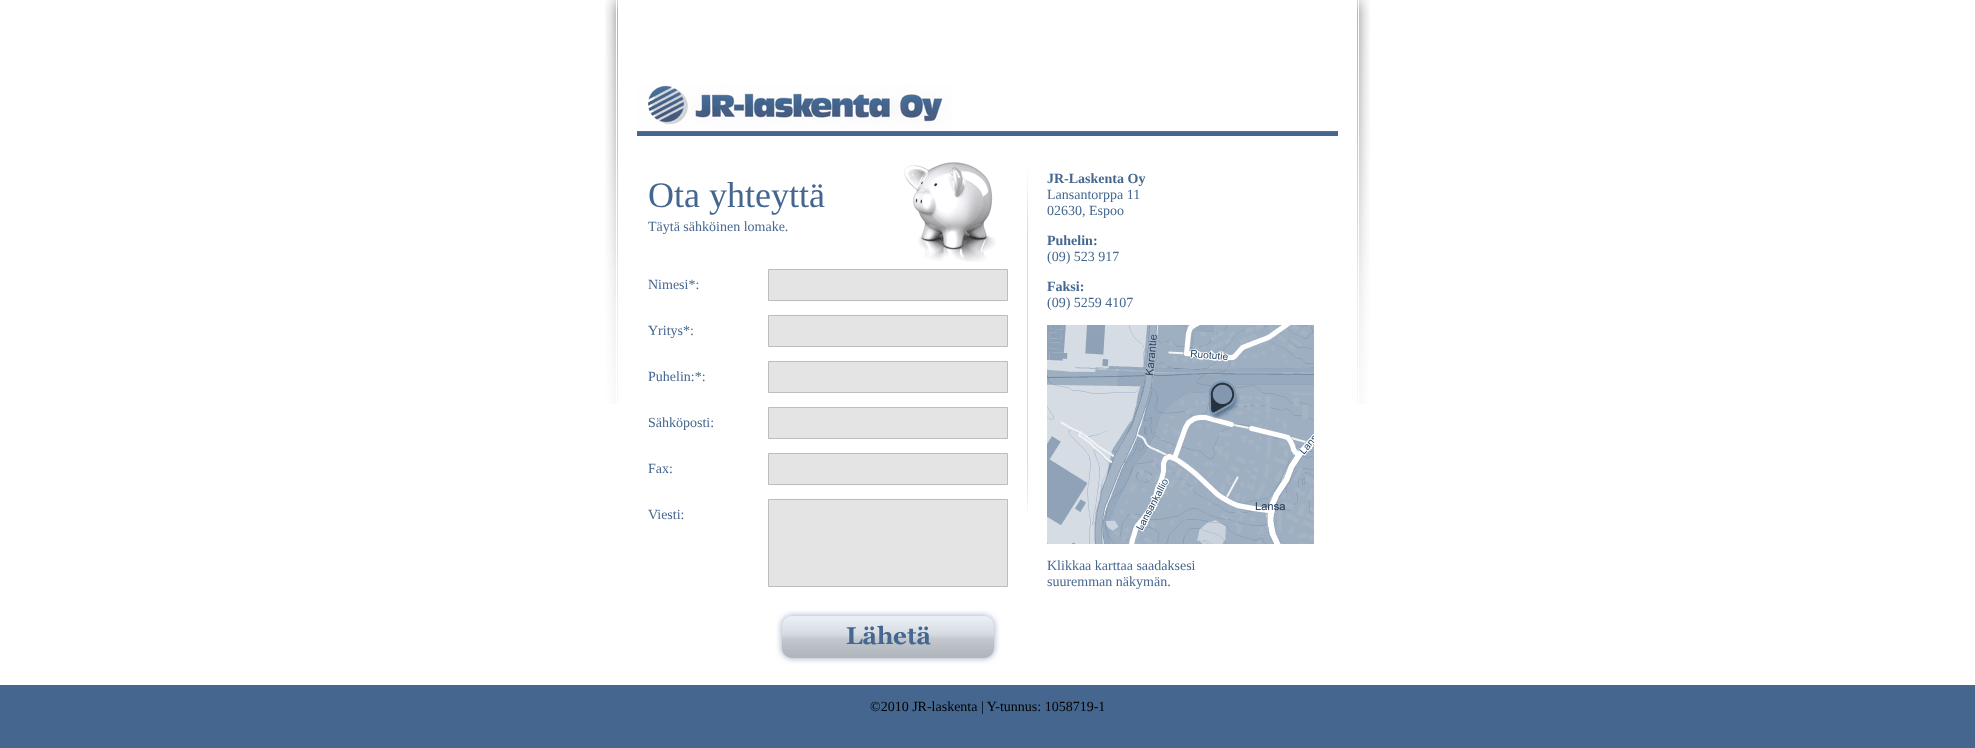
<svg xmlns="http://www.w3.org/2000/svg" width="1975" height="748">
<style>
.a{font:36px Liberation Serif;fill:#45678f}
.b{font:14px Liberation Serif;fill:#45678f}
.c{font:bold 14px Liberation Serif;fill:#45678f}
.d{font:14px Liberation Serif;fill:#000}
</style>
<rect width="100%" height="100%" fill="#45678f"/>
<path fill="#fff" d="M0 0h1975v685H0z"/>
<image href="1.png" x="605" y="0" width="765" height="404"/>
<image href="2.png" x="637" y="85" width="701" height="51"/>
<image href="3.png" x="904" y="162" width="92" height="100"/>
<path fill="#e4e4e4" stroke="#bcbcbc" d="M768.5 269.5h239v31H768.5z"/>
<path fill="#e4e4e4" stroke="#bcbcbc" d="M768.5 315.5h239v31H768.5z"/>
<path fill="#e4e4e4" stroke="#bcbcbc" d="M768.5 361.5h239v31H768.5z"/>
<path fill="#e4e4e4" stroke="#bcbcbc" d="M768.5 407.5h239v31H768.5z"/>
<path fill="#e4e4e4" stroke="#bcbcbc" d="M768.5 453.5h239v31H768.5z"/>
<path fill="#e4e4e4" stroke="#bcbcbc" d="M768.5 499.5h239v87H768.5z"/>
<image href="4.png" x="776" y="610" width="224" height="54"/>
<image href="5.png" x="1027" y="168" width="1" height="347"/>
<image href="6.png" x="1047" y="325" width="267" height="219"/>
<text class="a" x="648" y="207">Ota yhteyttä</text>
<text class="b" x="648" y="231">Täytä sähköinen lomake.</text>
<text class="b" x="648" y="289">Nimesi*:</text>
<text class="b" x="648" y="335">Yritys*:</text>
<text class="b" x="648" y="381">Puhelin:*:</text>
<text class="b" x="648" y="427">Sähköposti:</text>
<text class="b" x="648" y="473">Fax:</text>
<text class="b" x="648" y="519">Viesti:</text>
<text class="c" x="1047" y="183">JR-Laskenta Oy</text>
<text class="b" x="1047" y="199">Lansantorppa 11</text>
<text class="b" x="1047" y="215">02630, Espoo</text>
<text class="c" x="1047" y="245">Puhelin:</text>
<text class="b" x="1047" y="261">(09) 523 917</text>
<text class="c" x="1047" y="291">Faksi:</text>
<text class="b" x="1047" y="307">(09) 5259 4107</text>
<text class="b" x="1047" y="570">Klikkaa karttaa saadaksesi</text>
<text class="b" x="1047" y="586">suuremman näkymän.</text>
<text class="d" x="870" y="711">©2010 JR-laskenta | Y-tunnus: 1058719-1</text>
</svg>
